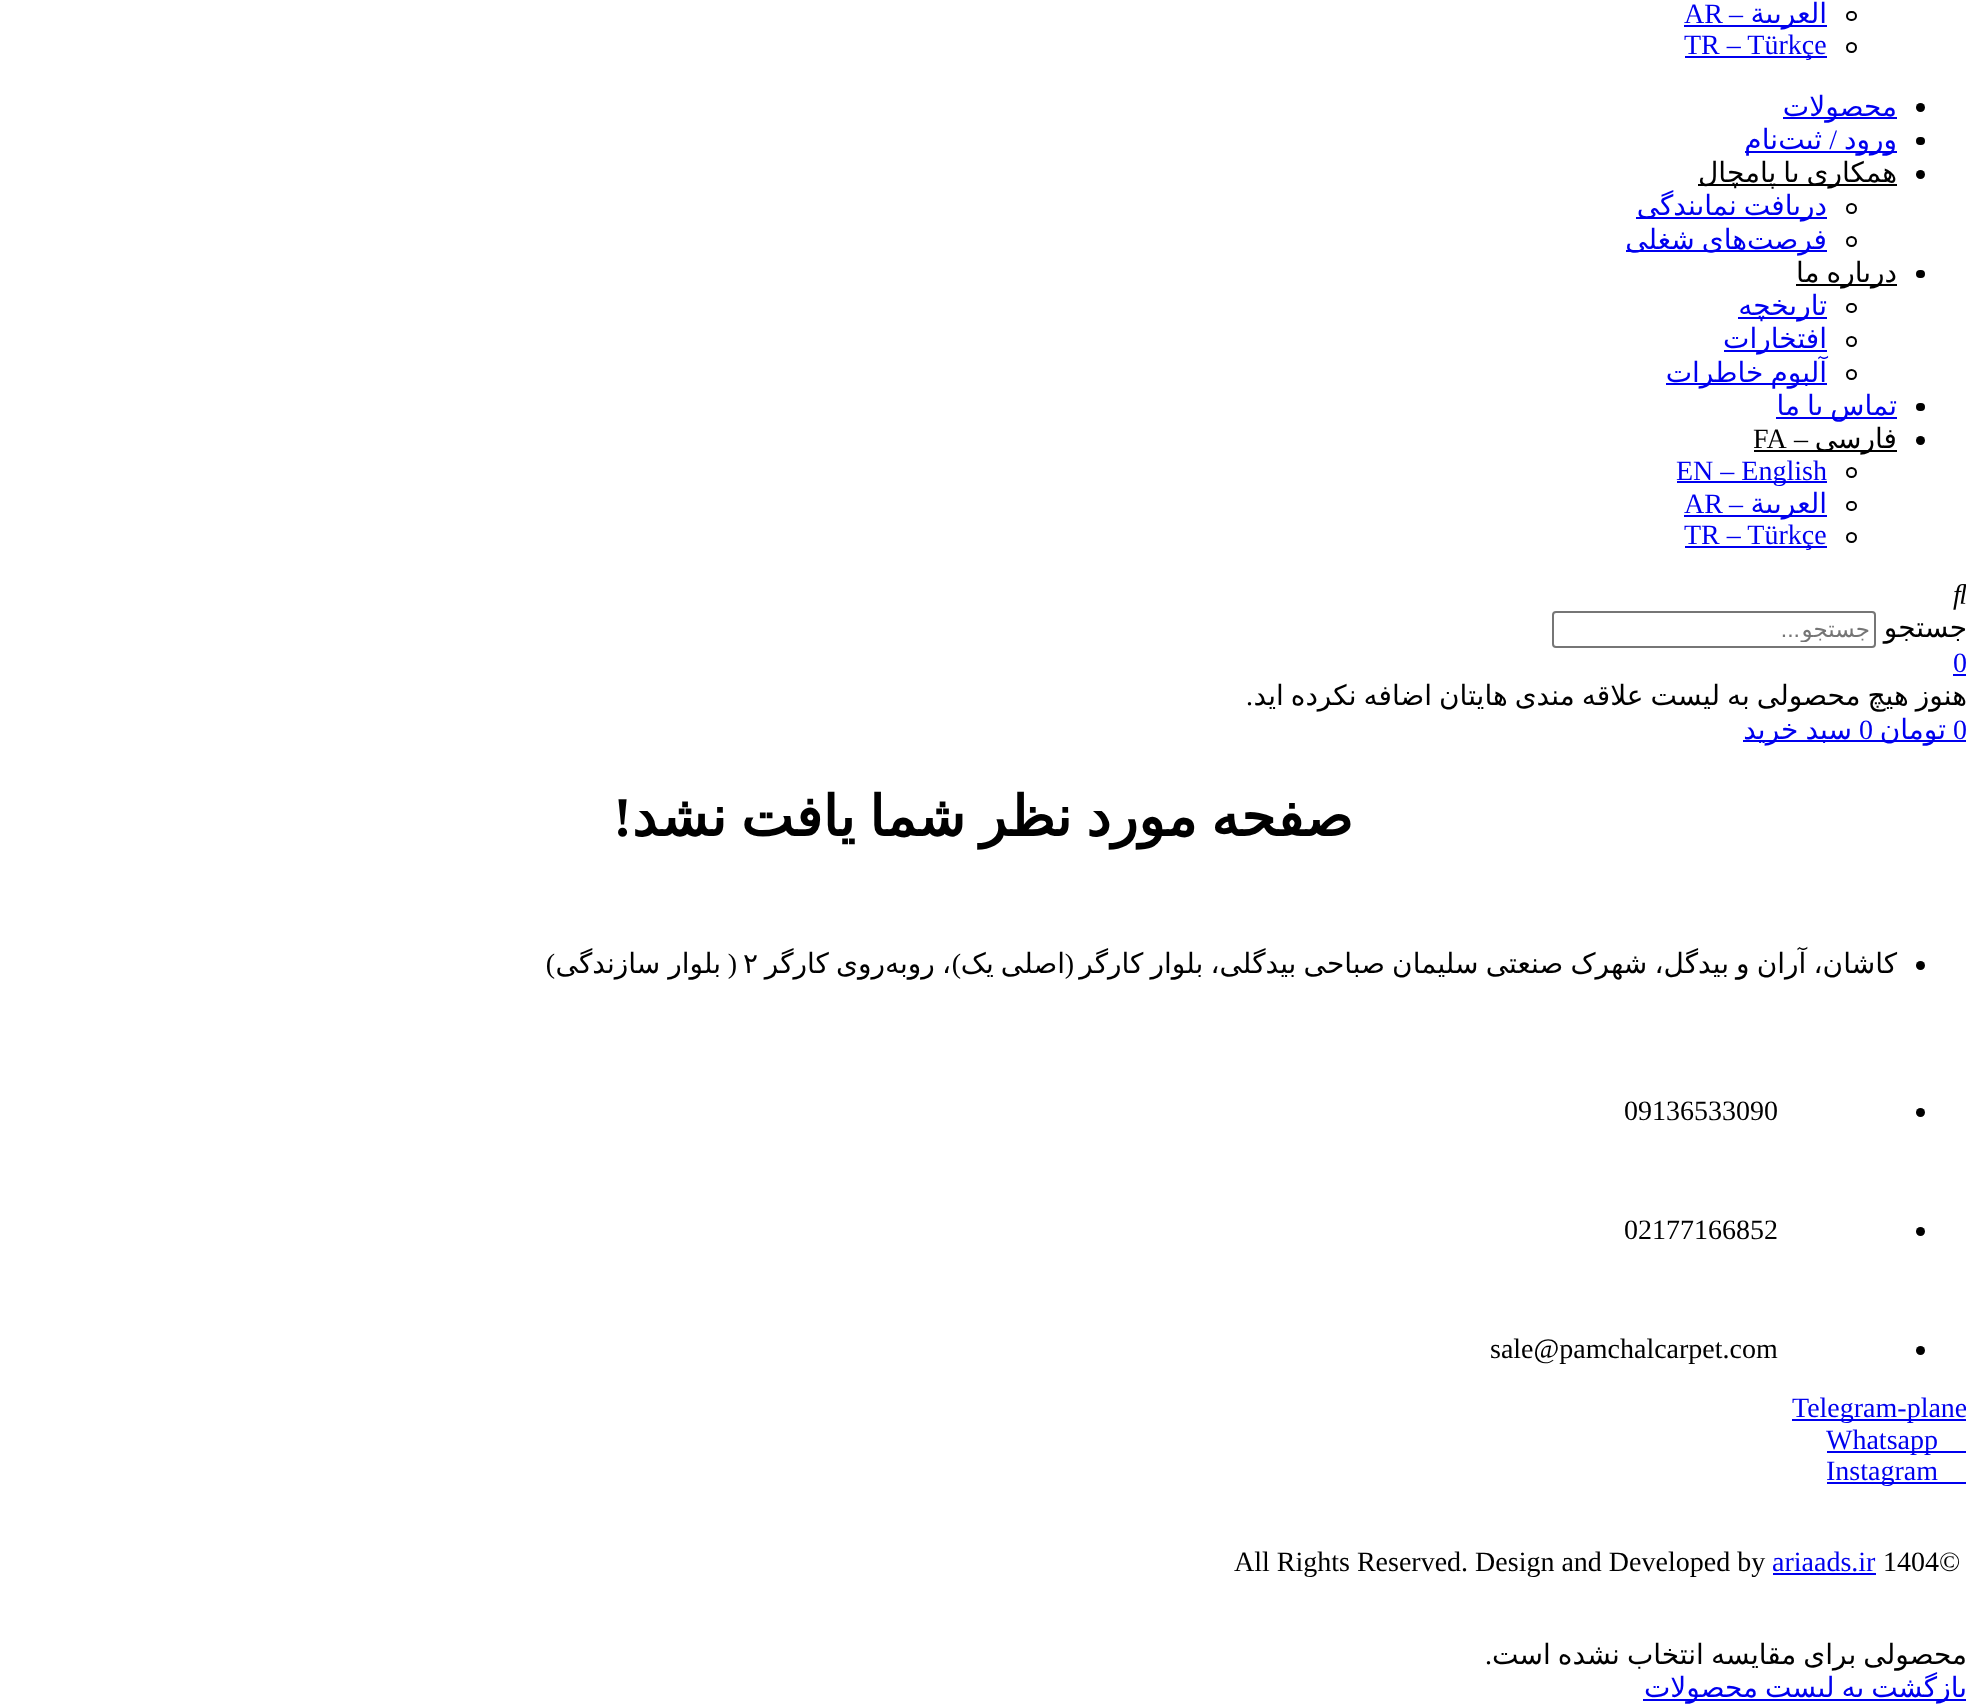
<svg xmlns="http://www.w3.org/2000/svg" width="1966" height="1704">
<style>
.a{font:28px DejaVu Sans;direction:rtl;fill:#00e}
.b{font:28px Liberation Serif;direction:rtl;fill:#00e}
.c{font:28px Liberation Serif;fill:#00e}
.d{font:28px DejaVu Sans;direction:rtl;fill:#000}
.e{font:28px Liberation Serif;direction:rtl;fill:#000}
.f{font:28px Liberation Serif;fill:#000}
.g{font:23px DejaVu Sans;direction:rtl;fill:#757575}
.h{font:23px Liberation Sans;direction:rtl;fill:#757575}
.i{font:bold 56px DejaVu Sans;direction:rtl;fill:#000}
.j{font:bold 56px Liberation Serif;direction:rtl;fill:#000}
.k{font:28px DejaVu Sans;fill:#000}
</style>
<defs>
<clipPath id="clip1"><path d="M1582 616h287v26H1582z"/></clipPath>
</defs>
<rect width="100%" height="100%" fill="#fff"/>
<rect fill="none" stroke="#000" stroke-width="2" x="1847" y="12" width="9" height="8" rx="4"/>
<path fill="#00e" d="M1684 25h143v2H1684z"/>
<circle fill="none" stroke="#000" stroke-width="2" cx="1851.5" cy="47.5" r="4.5"/>
<path fill="#00e" d="M1685 56h142v2H1685z"/>
<circle fill="#000" cx="1920.5" cy="107.5" r="4.5"/>
<path fill="#00e" d="M1783 117h114v2H1783z"/>
<rect fill="#000" x="1916" y="137" width="9" height="8" rx="4"/>
<path fill="#00e" d="M1745 151h152v2H1745z"/>
<circle fill="#000" cx="1920.5" cy="174.5" r="4.5"/>
<path fill="#000" d="M1698 184h199v2H1698z"/>
<circle fill="none" stroke="#000" stroke-width="2" cx="1851.5" cy="208.5" r="4.5"/>
<path fill="#00e" d="M1636 217h191v2H1636z"/>
<circle fill="none" stroke="#000" stroke-width="2" cx="1851.5" cy="241.5" r="4.5"/>
<path fill="#00e" d="M1626 250h201v2H1626z"/>
<rect fill="#000" x="1916" y="270" width="9" height="8" rx="4"/>
<path fill="#000" d="M1796 284h101v2H1796z"/>
<rect fill="none" stroke="#000" stroke-width="2" x="1847" y="304" width="9" height="8" rx="4"/>
<path fill="#00e" d="M1738 317h89v2H1738z"/>
<circle fill="none" stroke="#000" stroke-width="2" cx="1851.5" cy="341.5" r="4.5"/>
<path fill="#00e" d="M1724 350h103v2H1724z"/>
<circle fill="none" stroke="#000" stroke-width="2" cx="1851.5" cy="374.5" r="4.5"/>
<path fill="#00e" d="M1666 383h161v2H1666z"/>
<rect fill="#000" x="1916" y="403" width="9" height="8" rx="4"/>
<path fill="#00e" d="M1776 417h121v2H1776z"/>
<circle fill="#000" cx="1920.5" cy="440.5" r="4.5"/>
<path fill="#000" d="M1754 450h143v2H1754z"/>
<circle fill="none" stroke="#000" stroke-width="2" cx="1851.5" cy="472.5" r="4.5"/>
<path fill="#00e" d="M1677 481h150v2H1677z"/>
<rect fill="none" stroke="#000" stroke-width="2" x="1847" y="502" width="9" height="8" rx="4"/>
<path fill="#00e" d="M1684 515h143v2H1684z"/>
<circle fill="none" stroke="#000" stroke-width="2" cx="1851.5" cy="537.5" r="4.5"/>
<path fill="#00e" d="M1685 546h142v2H1685z"/>
<image href="1.png" x="1953" y="584" width="13" height="26"/>
<rect fill="none" stroke="#767676" stroke-width="2" x="1553" y="612" width="322" height="35" rx="3"/>
<path fill="#00e" d="M1953 674h13v2H1953z"/>
<path fill="#00e" d="M1743 740h223v2H1743z"/>
<circle fill="#000" cx="1920.5" cy="965.5" r="4.5"/>
<circle fill="#000" cx="1920.5" cy="1112.5" r="4.5"/>
<circle fill="#000" cx="1920.5" cy="1231.5" r="4.5"/>
<circle fill="#000" cx="1920.5" cy="1350.5" r="4.5"/>
<path fill="#00e" d="M1792 1419h174v2H1792z"/>
<path fill="#00e" d="M1827 1451h139v2H1827z"/>
<path fill="#00e" d="M1827 1482h139v2H1827z"/>
<path fill="#00e" d="M1773 1573h103v2H1773z"/>
<path fill="#00e" d="M1643 1699h323v2H1643z"/>
<text class="a" x="1827" y="23">العربیة</text>
<text class="b" x="1743" y="23">–</text>
<text class="c" x="1684" y="23">AR</text>
<text class="c" x="1684" y="54">TR – Türkçe</text>
<text class="a" x="1897" y="116">محصولات</text>
<text class="a" x="1897" y="149">ورود</text>
<text class="b" x="1837" y="149">/</text>
<text class="a" x="1822" y="149">ثبت</text>
<text class="a" x="1778" y="149">نام</text>
<text class="d" x="1897" y="182" word-spacing="-1.9">همکاری با پامچال</text>
<text class="a" x="1827" y="215" word-spacing="-1.9">دریافت نمایندگی</text>
<text class="a" x="1827" y="249">فرصت</text>
<text class="a" x="1747" y="249" word-spacing="-1.9">های شغلی</text>
<text class="d" x="1897" y="282" word-spacing="-1.9">درباره ما</text>
<text class="a" x="1827" y="315">تاریخچه</text>
<text class="a" x="1827" y="348">افتخارات</text>
<text class="a" x="1827" y="382" word-spacing="-1.9">آلبوم خاطرات</text>
<text class="a" x="1897" y="415" word-spacing="-1.9">تماس با ما</text>
<text class="d" x="1897" y="448">فارسی</text>
<text class="e" x="1808" y="448">–</text>
<text class="f" x="1753" y="448">FA</text>
<text class="c" x="1676" y="480">EN – English</text>
<text class="a" x="1827" y="513">العربیة</text>
<text class="b" x="1743" y="513">–</text>
<text class="c" x="1684" y="513">AR</text>
<text class="c" x="1684" y="544">TR – Türkçe</text>
<text class="d" x="1967" y="637">جستجو</text>
<g clip-path="url(#clip1)">
<text class="g" x="1870" y="637">جستجو</text>
</g>
<text class="h" x="1800" y="637">...</text>
<text class="c" x="1953" y="672">0</text>
<text class="d" x="1967" y="705" word-spacing="-1.9">هنوز هیچ محصولی به لیست علاقه مندی هایتان اضافه نکرده اید</text>
<text class="e" x="1253" y="705">.</text>
<text class="c" x="1953" y="739">0</text>
<text class="a" x="1946" y="739">تومان</text>
<text class="c" x="1859" y="739">0</text>
<text class="a" x="1852" y="739" word-spacing="-1.9">سبد خرید</text>
<text class="i" x="1353" y="836" word-spacing="-3.75">صفحه مورد نظر شما یافت نشد</text>
<text class="j" x="632" y="836">!</text>
<text class="d" x="1897" y="973" word-spacing="-1.75">کاشان، آران و بیدگل، شهرک صنعتی سلیمان صباحی بیدگلی، بلوار کارگر</text>
<text class="e" x="1074" y="973">(</text>
<text class="d" x="1065" y="973" word-spacing="-1.75">اصلی یک</text>
<text class="e" x="961" y="973">)</text>
<text class="d" x="951" y="973" word-spacing="-1.75">، روبه</text>
<text class="d" x="885" y="973" word-spacing="-1.75">روی کارگر</text>
<text class="k" x="743" y="973">۲</text>
<text class="e" x="737" y="973">(</text>
<text class="d" x="721" y="973" word-spacing="-1">بلوار سازندگی</text>
<text class="e" x="555" y="973">)</text>
<text class="f" x="1624" y="1120">09136533090</text>
<text class="f" x="1624" y="1239">02177166852</text>
<text class="f" x="1490" y="1358">sale@pamchalcarpet.com</text>
<text class="c" x="1792" y="1417">Telegram-plane</text>
<text class="c" x="1826" y="1449">Whatsapp</text>
<text class="c" x="1826" y="1480">Instagram</text>
<text class="f" x="1883" y="1571">1404©</text>
<text class="c" x="1772" y="1571">ariaads.ir</text>
<text class="f" x="1234" y="1571">All Rights Reserved. Design and Developed by</text>
<text class="d" x="1967" y="1664" word-spacing="-1.9">محصولی برای مقایسه انتخاب نشده است</text>
<text class="e" x="1492" y="1664">.</text>
<text class="a" x="1967" y="1697" word-spacing="-1.9">بازگشت به لیست محصولات</text>
</svg>
